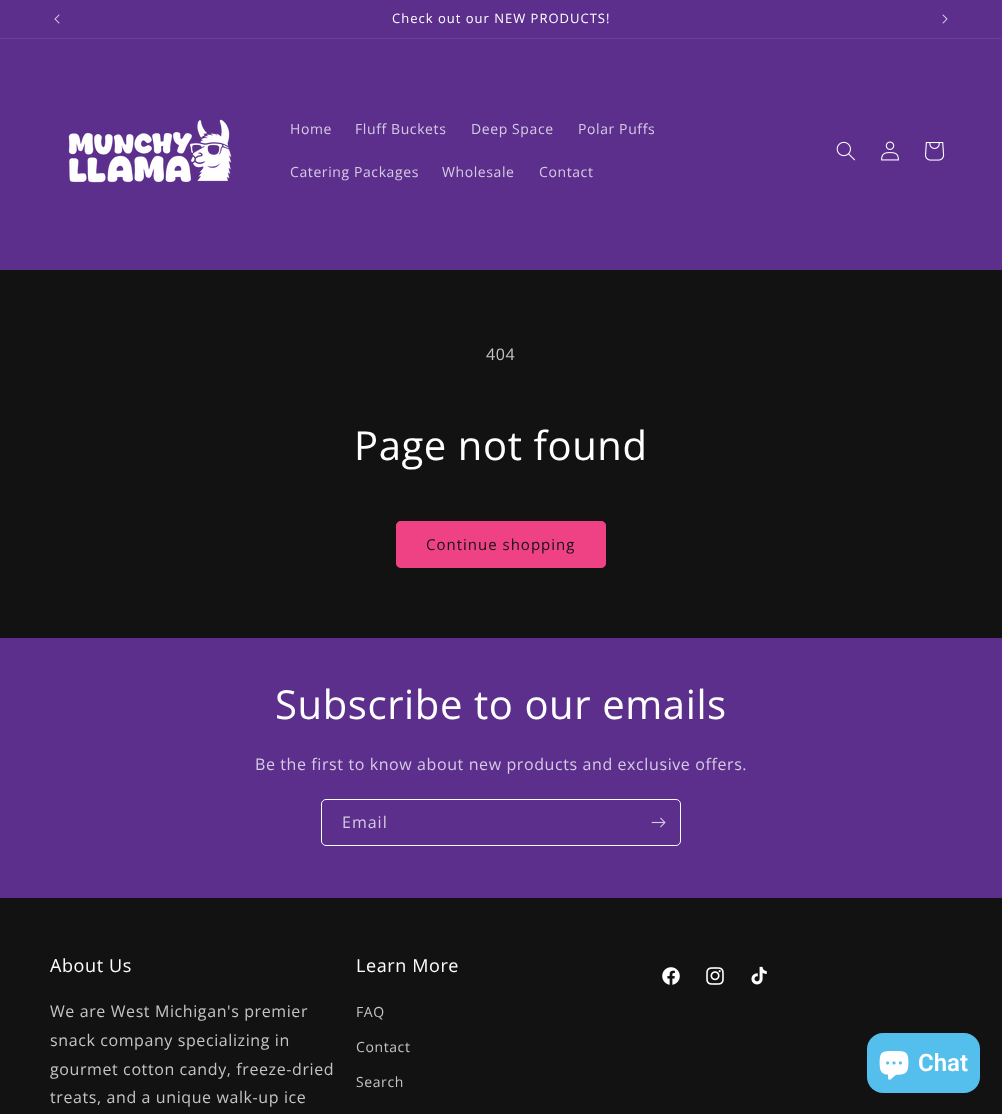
<svg xmlns="http://www.w3.org/2000/svg" width="1002" height="1114">
<style>
.a{font:13px Open Sans;letter-spacing:1px;fill:#fff}
.b{font:14px Open Sans;letter-spacing:0.6px;fill:#d6cbe3}
.c{font:16px Open Sans;letter-spacing:0.6px;fill:#c4c4c4}
.d{font:40px Open Sans;letter-spacing:0.6px;fill:#fff}
.e{font:15px Open Sans;letter-spacing:1px;fill:#121212}
.f{font:16px Open Sans;letter-spacing:0.6px;fill:#d6cbe3}
.g{font:16px Open Sans;letter-spacing:1px;fill:#d6cbe3}
.h{font:18px Open Sans;letter-spacing:0.6px;fill:#fff}
.i{font:14px Open Sans;letter-spacing:0.6px;fill:#c4c4c4}
.j{font:600 24px Roboto;fill:#fff}
</style>
<rect width="100%" height="100%" fill="#121212"/>
<path fill="#5c2f8d" d="M0 0h1002v38H0z"/>
<path fill="#694096" d="M0 38h1002v1H0z"/>
<image href="1.png" x="54" y="14" width="6" height="10"/>
<image href="2.png" x="942" y="14" width="6" height="10"/>
<path fill="#5c2f8d" d="M0 39h1002v231H0z"/>
<image href="3.png" x="68" y="119" width="164" height="64"/>
<image href="4.png" x="836" y="141" width="19" height="20"/>
<image href="5.png" x="881" y="141" width="18" height="20"/>
<image href="6.png" x="925" y="142" width="20" height="19"/>
<rect fill="#ee4285" x="396" y="521" width="210" height="47" rx="5"/>
<rect fill="none" stroke="#ee4285" x="396.5" y="521.5" width="209" height="46" rx="4.5"/>
<path fill="#5c2f8d" d="M0 638h1002v260H0z"/>
<rect fill="none" stroke="#fff" x="321.5" y="799.5" width="359" height="46" rx="4.5"/>
<image href="7.png" x="651" y="817" width="15" height="11"/>
<image href="8.png" x="662" y="967" width="18" height="18"/>
<image href="9.png" x="706" y="967" width="18" height="18"/>
<image href="10.png" x="751" y="966" width="16" height="19"/>
<rect fill="#54bfed" x="867" y="1033" width="113" height="60" rx="16"/>
<image href="11.png" x="879" y="1051" width="30" height="29"/>
<text class="a" x="392" y="23">Check out our NEW PRODUCTS!</text>
<text class="b" x="290" y="134">Home</text>
<text class="b" x="355" y="134">Fluff Buckets</text>
<text class="b" x="471" y="134">Deep Space</text>
<text class="b" x="578" y="134">Polar Puffs</text>
<text class="b" x="290" y="177">Catering Packages</text>
<text class="b" x="442" y="177">Wholesale</text>
<text class="b" x="539" y="177">Contact</text>
<text class="c" x="486" y="360">404</text>
<text class="d" x="354" y="460">Page not found</text>
<text class="e" x="426" y="550">Continue shopping</text>
<text class="d" x="275" y="719">Subscribe to our emails</text>
<text class="f" x="255" y="770">Be the first to know about new products and exclusive offers.</text>
<text class="g" x="342" y="828">Email</text>
<text class="h" x="50" y="972">About Us</text>
<text class="c" x="50" y="1017">We are West Michigan's premier</text>
<text class="c" x="50" y="1046">snack company specializing in</text>
<text class="c" x="50" y="1075">gourmet cotton candy, freeze-dried</text>
<text class="c" x="50" y="1103">treats, and a unique walk-up ice</text>
<text class="h" x="356" y="972">Learn More</text>
<text class="i" x="356" y="1017">FAQ</text>
<text class="i" x="356" y="1052">Contact</text>
<text class="i" x="356" y="1087">Search</text>
<text class="j" x="918" y="1071">Chat</text>
</svg>
